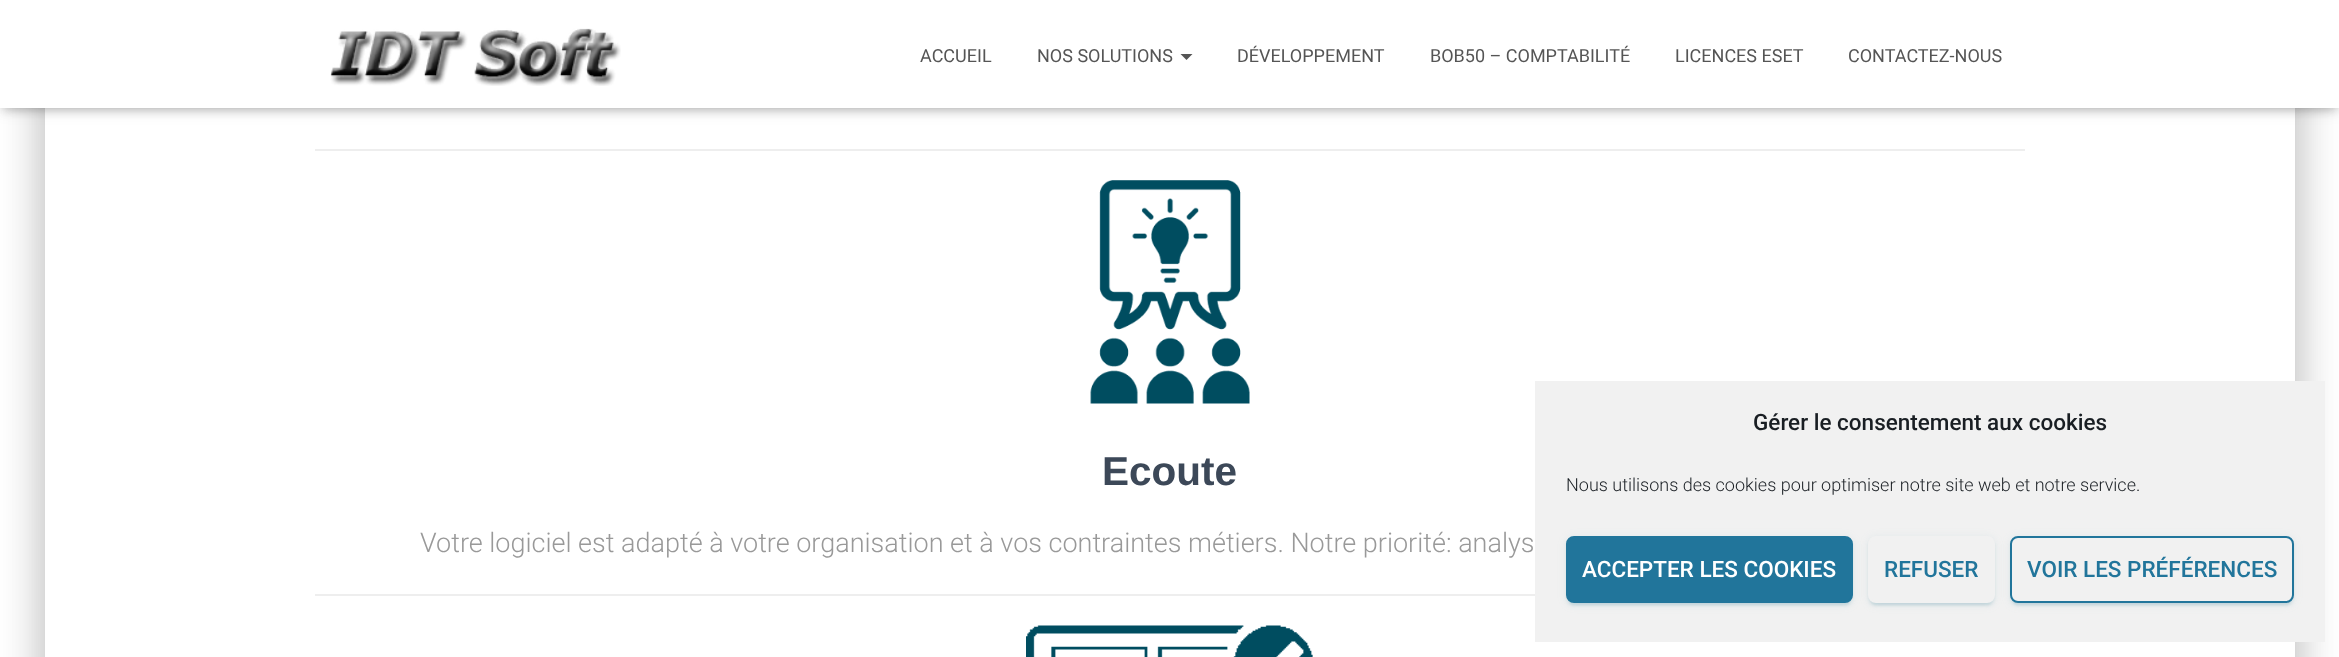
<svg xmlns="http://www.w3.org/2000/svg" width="2339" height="657">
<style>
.a{font:18px Roboto;fill:#555}
.b{font:bold 40.5px Liberation Sans;fill:#3c4858}
.c{font:300 27px Roboto;fill:#999}
.d{font:500 22.5px Roboto;fill:#191e23}
.e{font:300 18px Roboto;fill:#191e23}
.f{font:500 22.5px Roboto;fill:#fff}
.g{font:500 22.5px Roboto;fill:#21759b}
</style>
<defs>
<clipPath id="clip1"><path d="M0 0h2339v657h-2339zm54-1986h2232c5 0 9 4 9 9v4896h-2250v-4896c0-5 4-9 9-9z" clip-rule="evenodd"/></clipPath>
</defs>
<rect width="100%" height="100%" fill="#fff"/>
<path fill="#0000001a" filter="blur(4px)" d="M3 9h2334v102H3z"/>
<path fill="#0000001f" filter="blur(7.5px)" d="M0 2h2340v108H0z"/>
<path fill="#0000006b" filter="blur(7.5px)" d="M9 11h2322v90H9z"/>
<g clip-path="url(#clip1)">
<rect fill="#0000001f" filter="blur(22.5px)" x="38" y="-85" width="2265" height="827" rx="17"/>
<rect fill="#00000024" filter="blur(18px)" x="42" y="-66" width="2256" height="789" rx="12"/>
</g>
<path fill="#fff" d="M0 0h2339v108H0z"/>
<image href="1.png" x="330" y="28" width="291" height="58"/>
<path fill="#555" d="M1180.5 54h12l-6 6z"/>
<path fill="#eee" d="M315 149h1710v2H315z"/>
<image href="2.png" x="1090" y="180" width="160" height="224"/>
<path fill="#eee" d="M315 594h1220v2H315z"/>
<image href="3.png" x="1026" y="625" width="287" height="32"/>
<path fill="#f1f1f1" d="M1535 381h790v261H1535z"/>
<rect fill="#77aaba1f" filter="blur(4px)" x="1566" y="537" width="287" height="68" rx="8"/>
<rect fill="#77aaba33" filter="blur(1px)" x="1569" y="543" width="281" height="62" rx="5"/>
<rect fill="#77aaba24" filter="blur(1.5px)" x="1566" y="539" width="287" height="67" rx="8"/>
<rect fill="#21759b" stroke="#21759b" stroke-width="2" x="1567" y="537" width="285" height="65" rx="7"/>
<rect fill="#77aaba1f" filter="blur(4px)" x="1868" y="537" width="127" height="68" rx="8"/>
<rect fill="#77aaba33" filter="blur(1px)" x="1871" y="543" width="121" height="62" rx="5"/>
<rect fill="#77aaba24" filter="blur(1.5px)" x="1868" y="539" width="127" height="67" rx="8"/>
<rect fill="#f1f1f1" stroke="#f1f1f1" stroke-width="2" x="1869" y="537" width="125" height="65" rx="7"/>
<rect fill="#77aaba1f" filter="blur(4px)" x="2010" y="537" width="284" height="68" rx="8"/>
<rect fill="#77aaba33" filter="blur(1px)" x="2013" y="543" width="278" height="62" rx="5"/>
<rect fill="#77aaba24" filter="blur(1.5px)" x="2010" y="539" width="284" height="67" rx="8"/>
<rect fill="#f1f1f1" stroke="#21759b" stroke-width="2" x="2011" y="537" width="282" height="65" rx="7"/>
<text class="a" x="920" y="62">ACCUEIL</text>
<text class="a" x="1037" y="62">NOS SOLUTIONS</text>
<text class="a" x="1237" y="62">DÉVELOPPEMENT</text>
<text class="a" x="1430" y="62">BOB50 – COMPTABILITÉ</text>
<text class="a" x="1675" y="62">LICENCES ESET</text>
<text class="a" x="1848" y="62">CONTACTEZ-NOUS</text>
<text class="b" x="1102" y="485">Ecoute</text>
<text class="c" x="420" y="552">Votre logiciel est adapté à votre organisation et à vos contraintes métiers. Notre priorité: analys</text>
<text class="d" x="1753" y="430">Gérer le consentement aux cookies</text>
<text class="e" x="1566" y="491">Nous utilisons des cookies pour optimiser notre site web et notre service.</text>
<text class="f" x="1582" y="577">ACCEPTER LES COOKIES</text>
<text class="g" x="1884" y="577">REFUSER</text>
<text class="g" x="2027" y="577">VOIR LES PRÉFÉRENCES</text>
</svg>
